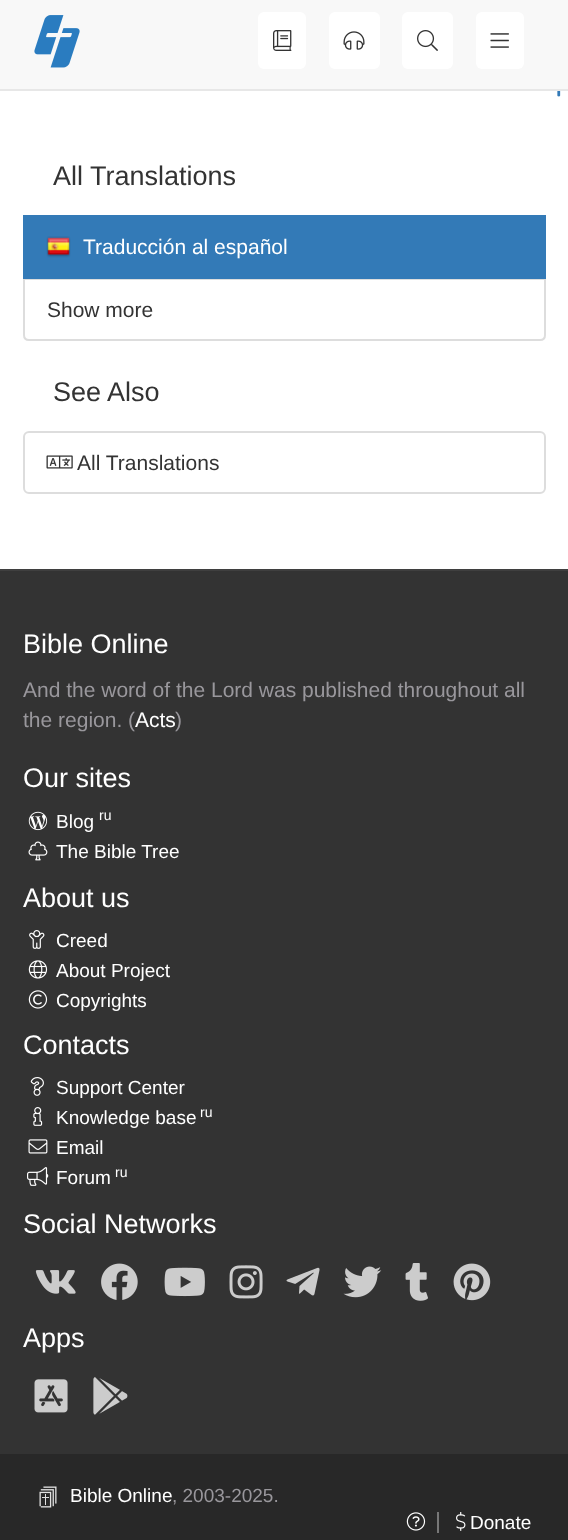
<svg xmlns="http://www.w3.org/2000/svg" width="568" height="1540">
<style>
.a{font:27px Liberation Sans;fill:#333}
.b{font:21px Liberation Sans;fill:#fff}
.c{font:21px Liberation Sans;fill:#333}
.d{font:27px Liberation Sans;fill:#fff}
.e{font:21px Liberation Sans;fill:#99979c}
.f{font:19px Liberation Sans;fill:#fff}
.g{font:14px Liberation Sans;fill:#fff}
.h{font:19px Liberation Sans;fill:#99979c}
</style>
<rect width="100%" height="100%" fill="#fff"/>
<path fill="#f8f8f8" d="M0 0h568v89H0z"/>
<path fill="#e7e7e7" d="M0 89h568v2H0z"/>
<image href="1.png" x="34" y="15" width="46" height="53"/>
<rect fill="#fff" x="258" y="12" width="48" height="57" rx="6"/>
<image href="2.png" x="273" y="30" width="19" height="21"/>
<rect fill="#fff" x="329" y="12" width="51" height="57" rx="6"/>
<image href="3.png" x="343" y="31" width="22" height="19"/>
<rect fill="#fff" x="402" y="12" width="51" height="57" rx="6"/>
<image href="4.png" x="417" y="30" width="21" height="21"/>
<rect fill="#fff" x="476" y="12" width="48" height="57" rx="6"/>
<image href="5.png" x="490" y="33" width="19" height="15"/>
<image href="6.png" x="557" y="91" width="4" height="6"/>
<path fill="none" stroke="#ddd" stroke-width="2" d="M24 279h521v56c0 3-2 5-5 5h-511c-3 0-5-2-5-5z"/>
<path fill="#337ab7" d="M23 215h523v64H23z"/>
<image href="7.png" x="46" y="236" width="25" height="22"/>
<rect fill="none" stroke="#ddd" stroke-width="2" x="24" y="432" width="521" height="61" rx="5"/>
<image href="8.png" x="46" y="455" width="27" height="14"/>
<path fill="#333" d="M0 571h568v883H0z"/>
<path fill="#3f3f3f" d="M0 569h568v2H0z"/>
<image href="9.png" x="28" y="811" width="20" height="20"/>
<image href="10.png" x="28" y="841" width="20" height="20"/>
<image href="11.png" x="29" y="930" width="16" height="19"/>
<image href="12.png" x="28" y="960" width="20" height="19"/>
<image href="13.png" x="28" y="990" width="20" height="19"/>
<image href="14.png" x="30" y="1077" width="14" height="19"/>
<image href="15.png" x="33" y="1107" width="10" height="19"/>
<image href="16.png" x="28" y="1139" width="20" height="15"/>
<image href="17.png" x="27" y="1167" width="22" height="19"/>
<image href="18.png" x="35" y="1270" width="41" height="24"/>
<image href="19.png" x="101" y="1263" width="37" height="37"/>
<image href="20.png" x="164" y="1267" width="41" height="30"/>
<image href="21.png" x="229" y="1265" width="34" height="34"/>
<image href="22.png" x="286" y="1267" width="34" height="29"/>
<image href="23.png" x="343" y="1266" width="39" height="32"/>
<image href="24.png" x="405" y="1263" width="23" height="38"/>
<image href="25.png" x="453" y="1263" width="38" height="38"/>
<image href="26.png" x="34" y="1379" width="34" height="34"/>
<image href="27.png" x="93" y="1377" width="35" height="38"/>
<path fill="#282828" d="M0 1454h568v86H0z"/>
<image href="28.png" x="39" y="1486" width="18" height="22"/>
<image href="29.png" x="406" y="1512" width="20" height="19"/>
<path fill="#777" d="M437 1512h2v21H437z"/>
<image href="30.png" x="456" y="1512" width="10" height="19"/>
<text class="a" x="53" y="185">All Translations</text>
<text class="b" x="83" y="254">Traducción al español</text>
<text class="c" x="47" y="317">Show more</text>
<text class="a" x="53" y="401">See Also</text>
<text class="c" x="77" y="470">All Translations</text>
<text class="d" x="23" y="653">Bible Online</text>
<text class="e" x="23" y="697">And the word of the Lord was published throughout all</text>
<text class="e" x="23" y="727">the region. (</text>
<text class="b" x="135" y="727">Acts</text>
<text class="e" x="175" y="727">)</text>
<text class="d" x="23" y="787">Our sites</text>
<text class="f" x="56" y="828">Blog</text>
<text class="g" x="99" y="820">ru</text>
<text class="f" x="56" y="858">The Bible Tree</text>
<text class="d" x="23" y="907">About us</text>
<text class="f" x="56" y="947">Creed</text>
<text class="f" x="56" y="977">About Project</text>
<text class="f" x="56" y="1007">Copyrights</text>
<text class="d" x="23" y="1054">Contacts</text>
<text class="f" x="56" y="1094">Support Center</text>
<text class="f" x="56" y="1124">Knowledge base</text>
<text class="g" x="200" y="1117">ru</text>
<text class="f" x="56" y="1154">Email</text>
<text class="f" x="56" y="1184">Forum</text>
<text class="g" x="115" y="1177">ru</text>
<text class="d" x="23" y="1233">Social Networks</text>
<text class="d" x="23" y="1347">Apps</text>
<text class="f" x="70" y="1502">Bible Online</text>
<text class="h" x="172" y="1502">, 2003-2025.</text>
<text class="f" x="470" y="1529">Donate</text>
</svg>
